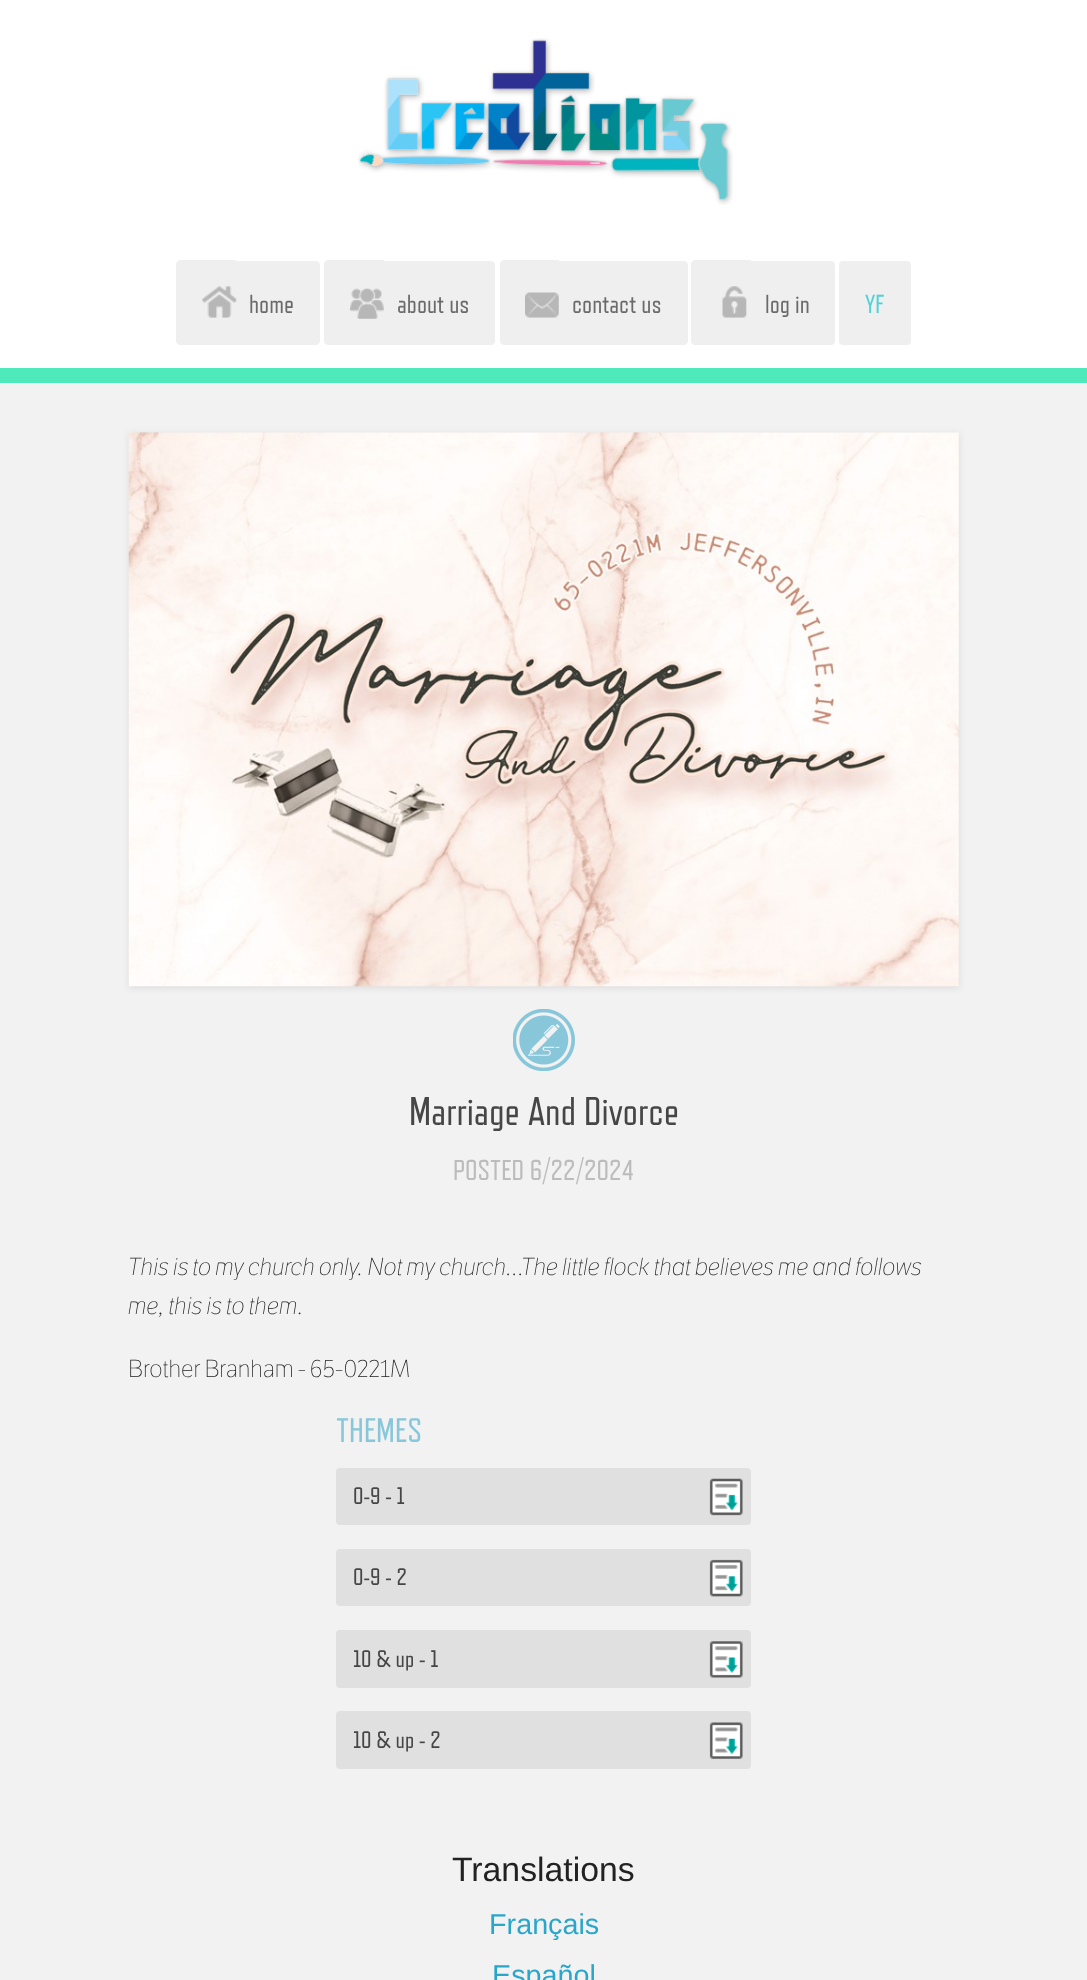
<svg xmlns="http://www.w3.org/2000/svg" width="1087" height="1980">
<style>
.a{font:26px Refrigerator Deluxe;fill:#6a6a6a}
.b{font:26px Refrigerator Deluxe;fill:#50d1d6}
.c{font:40px Refrigerator Deluxe;fill:#464646}
.d{font:28.75px Refrigerator Deluxe;fill:#bcbcbc}
.e{font:italic 300 24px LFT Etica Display;fill:#222}
.f{font:300 24px LFT Etica Display;fill:#222}
.g{font:34px Refrigerator Deluxe;fill:#88c7da}
.h{font:24px Refrigerator Deluxe;fill:#464646}
.i{font:33.75px Liberation Sans;fill:#222}
.j{font:28.75px Liberation Sans;fill:#2ba6cb}
</style>
<rect width="100%" height="100%" fill="#fff"/>
<path fill="#4feabc" d="M0 368h1087v15H0z"/>
<image href="1.png" x="358" y="38" width="375" height="167"/>
<path fill="#efefef" d="M180 260h56v85h-56c-2 0-4-2-4-4v-77c0-2 2-4 4-4z"/>
<path fill="#efefef" d="M236 261h80c2 0 4 2 4 4v76c0 2-2 4-4 4h-80z"/>
<image href="2.png" x="202" y="286" width="35" height="32"/>
<path fill="#efefef" d="M328 260h56v85h-56c-2 0-4-2-4-4v-77c0-2 2-4 4-4z"/>
<path fill="#efefef" d="M384 261h107c2 0 4 2 4 4v76c0 2-2 4-4 4h-107z"/>
<image href="3.png" x="350" y="288" width="34" height="31"/>
<path fill="#efefef" d="M504 260h55v85h-55c-2 0-4-2-4-4v-77c0-2 2-4 4-4z"/>
<path fill="#efefef" d="M559 261h125c2 0 4 2 4 4v76c0 2-2 4-4 4h-125z"/>
<image href="4.png" x="525" y="292" width="34" height="26"/>
<path fill="#efefef" d="M695 260h56v85h-56c-2 0-4-2-4-4v-77c0-2 2-4 4-4z"/>
<path fill="#efefef" d="M751 261h80c2 0 4 2 4 4v76c0 2-2 4-4 4h-80z"/>
<image href="5.png" x="722" y="286" width="25" height="32"/>
<rect fill="#efefef" x="839" y="261" width="72" height="84" rx="4"/>
<path fill="#f2f2f2" d="M0 383h1087v1597H0z"/>
<path fill="#dbdbdb" filter="blur(3px)" d="M129 434h830v554H129z"/>
<image href="6.png" x="128" y="432" width="831" height="555"/>
<image href="7.png" x="513" y="1009" width="62" height="62"/>
<rect fill="#e0e0e0" x="336" y="1468" width="415" height="57" rx="4"/>
<image href="8.png" x="709" y="1478" width="34" height="38"/>
<rect fill="#e0e0e0" x="336" y="1549" width="415" height="57" rx="4"/>
<image href="9.png" x="709" y="1559" width="34" height="38"/>
<rect fill="#e0e0e0" x="336" y="1630" width="415" height="58" rx="4"/>
<image href="10.png" x="709" y="1641" width="34" height="37"/>
<rect fill="#e0e0e0" x="336" y="1711" width="415" height="58" rx="4"/>
<image href="11.png" x="709" y="1722" width="34" height="37"/>
<text class="a" x="249" y="313">home</text>
<text class="a" x="397" y="313">about us</text>
<text class="a" x="572" y="313">contact us</text>
<text class="a" x="765" y="313">log in</text>
<text class="b" x="865" y="313">YF</text>
<text class="c" x="409" y="1125">Marriage And Divorce</text>
<text class="d" x="453" y="1180">POSTED 6/22/2024</text>
<text class="e" x="128" y="1275">This is to my church only. Not my church…The little flock that believes me and follows</text>
<text class="e" x="128" y="1314">me, this is to them.</text>
<text class="f" x="128" y="1377">Brother Branham - 65-0221M</text>
<text class="g" x="336" y="1442">THEMES</text>
<text class="h" x="353" y="1504">0-9 - 1</text>
<text class="h" x="353" y="1585">0-9 - 2</text>
<text class="h" x="353" y="1667">10 &amp; up - 1</text>
<text class="h" x="353" y="1748">10 &amp; up - 2</text>
<text class="i" x="452" y="1881">Translations</text>
<text class="j" x="489" y="1934">Français</text>
<text class="j" x="492" y="1985">Español</text>
</svg>
